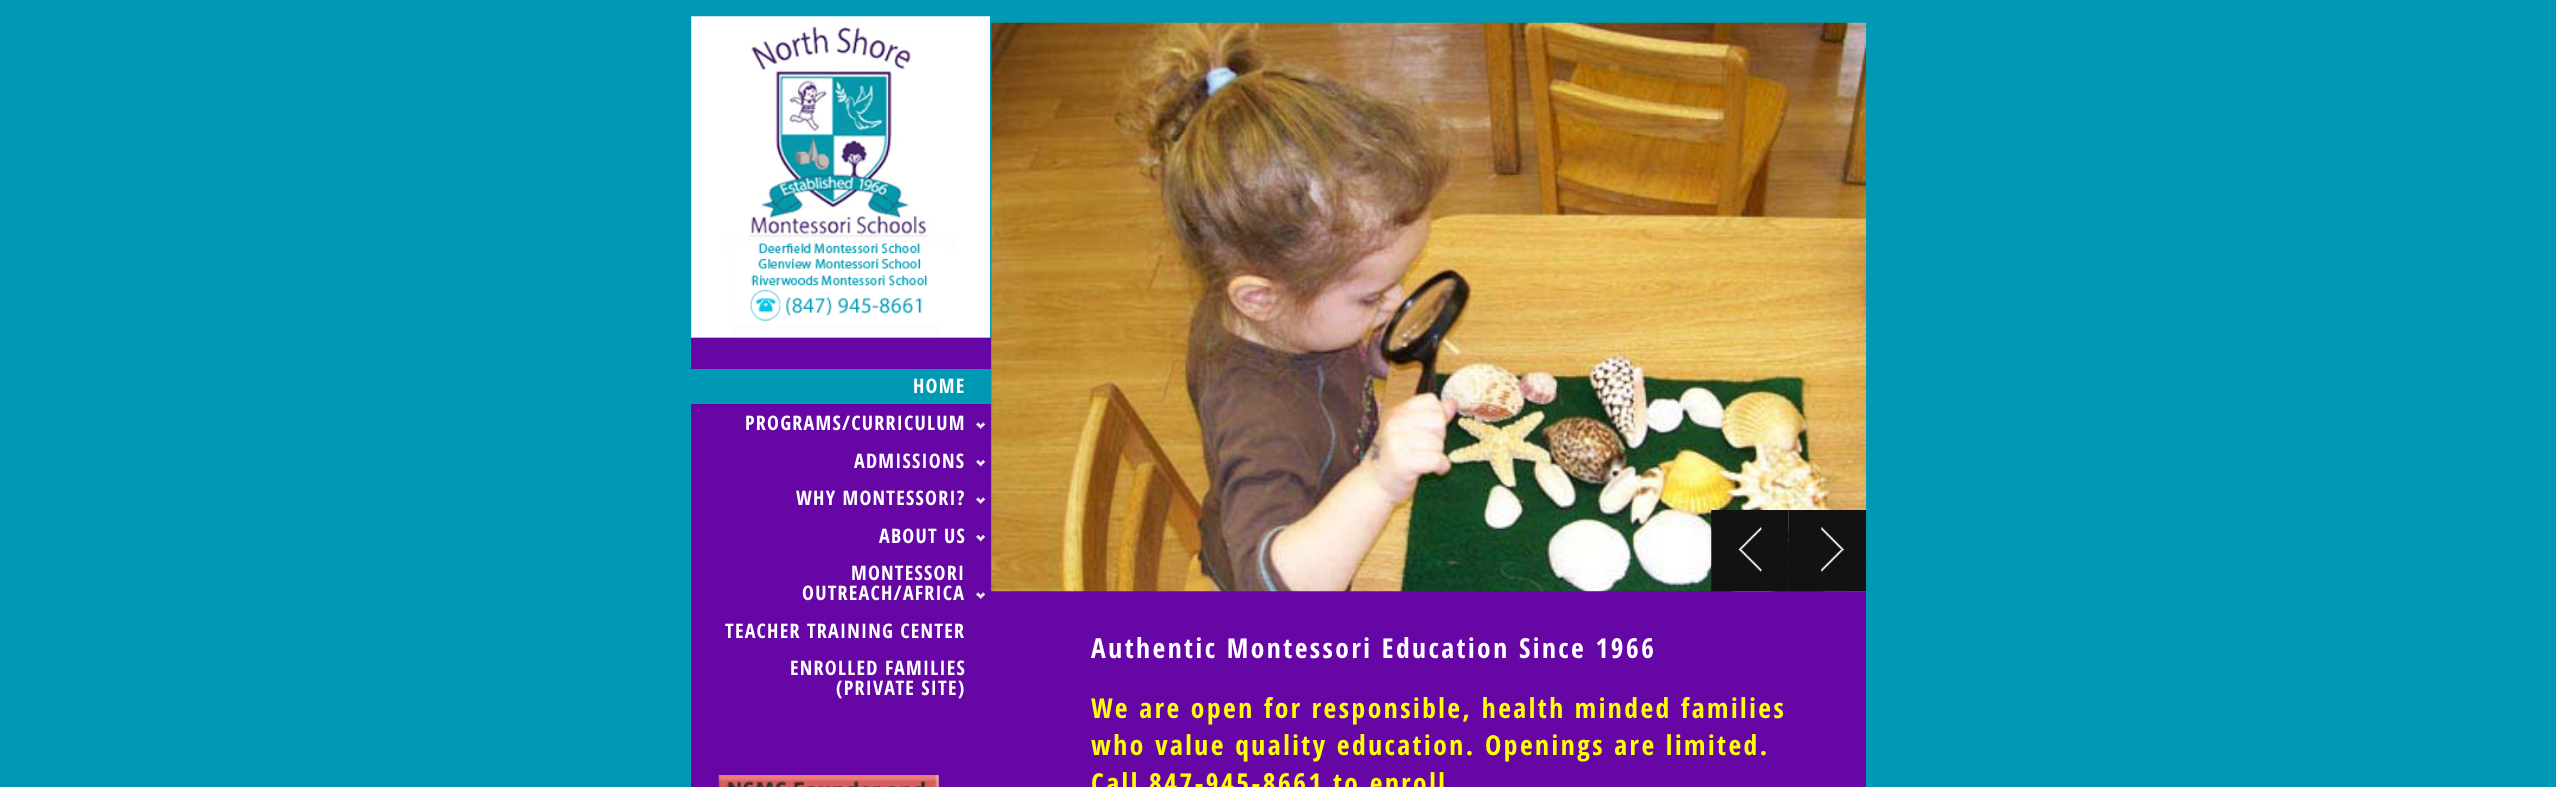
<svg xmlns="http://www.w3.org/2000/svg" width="2556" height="787">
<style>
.a{font:bold 20px Open Sans Condensed;letter-spacing:1.25px;fill:#fff}
.b{font:bold 27.5px Open Sans Condensed;letter-spacing:2.5px;fill:#fff}
.c{font:bold 27.5px Open Sans Condensed;letter-spacing:2.5px;fill:#ff0}
</style>
<rect width="100%" height="100%" fill="#0099b5"/>
<image href="1.png" x="691" y="16" width="299" height="322"/>
<path fill="#6607a5" d="M691 338h300v449H691z"/>
<path fill="#0099b5" d="M691 369h300v35H691z"/>
<image href="2.png" x="976" y="422" width="9" height="7"/>
<image href="3.png" x="976" y="460" width="9" height="7"/>
<image href="2.png" x="976" y="497" width="9" height="7"/>
<image href="3.png" x="976" y="535" width="9" height="7"/>
<image href="2.png" x="976" y="592" width="9" height="7"/>
<image href="4.png" x="718" y="775" width="221" height="12"/>
<path fill="#6607a5" d="M991 591h875v196H991z"/>
<image href="5.png" x="991" y="22" width="876" height="570"/>
<image href="6.png" x="1711" y="510" width="78" height="82"/>
<image href="7.png" x="1788" y="510" width="79" height="82"/>
<text class="a" x="913" y="393">HOME</text>
<text class="a" x="745" y="430">PROGRAMS/CURRICULUM</text>
<text class="a" x="854" y="468">ADMISSIONS</text>
<text class="a" x="796" y="505">WHY MONTESSORI?</text>
<text class="a" x="879" y="543">ABOUT US</text>
<text class="a" x="851" y="580">MONTESSORI</text>
<text class="a" x="802" y="600">OUTREACH/AFRICA</text>
<text class="a" x="725" y="638">TEACHER TRAINING CENTER</text>
<text class="a" x="790" y="675">ENROLLED FAMILIES</text>
<text class="a" x="836" y="695">(PRIVATE SITE)</text>
<text class="b" x="1091" y="658">Authentic Montessori Education Since 1966</text>
<text class="c" x="1091" y="718">We are open for responsible, health minded families</text>
<text class="c" x="1091" y="755">who value quality education. Openings are limited.</text>
<text class="c" x="1091" y="793">Call 847-945-8661 to enroll</text>
</svg>
